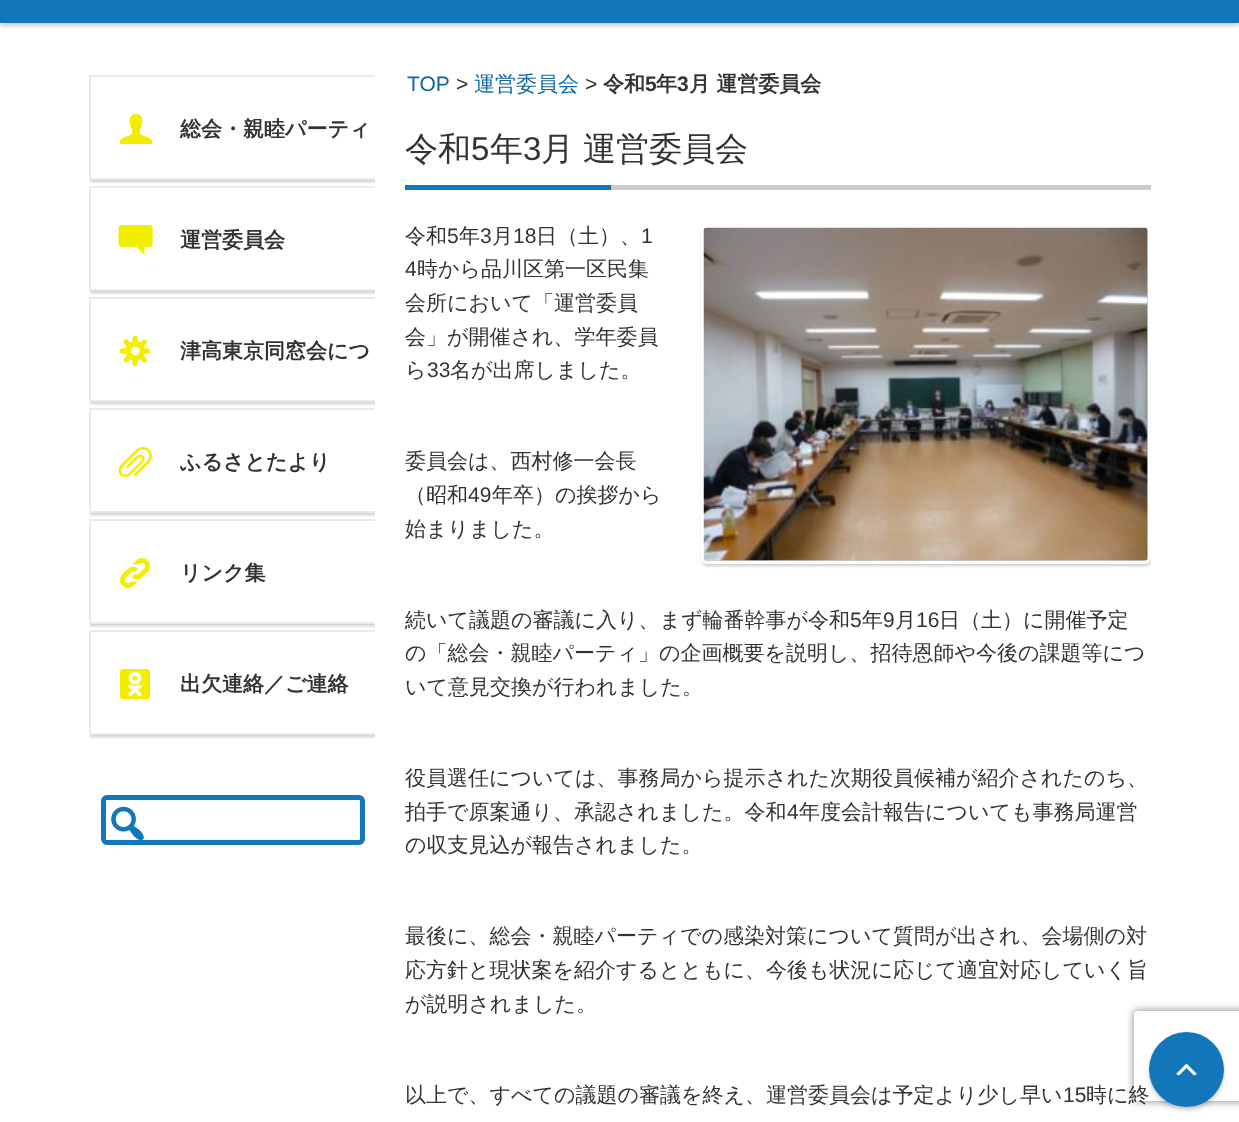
<svg xmlns="http://www.w3.org/2000/svg" width="1239" height="1122">
<style>
.a{font:21px Liberation Sans;fill:#0e67a3}
.b{font:21px Liberation Sans;fill:#333}
.c{font:500 21px WenQuanYi Zen Hei;fill:#0e67a3}
.d{font:bold 21px WenQuanYi Zen Hei;fill:#333}
.e{font:bold 21px Liberation Sans;fill:#333}
.f{font:500 33px WenQuanYi Zen Hei;fill:#333}
.g{font:33px Liberation Sans;fill:#333}
.h{font:500 21px WenQuanYi Zen Hei;fill:#333}
</style>
<defs>
<clipPath id="clip1"><path d="M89 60h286v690H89z"/></clipPath>
<clipPath id="clip2"><path d="M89 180h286v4H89z"/></clipPath>
<clipPath id="clip3"><path d="M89 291h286v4H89z"/></clipPath>
<clipPath id="clip4"><path d="M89 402h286v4H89z"/></clipPath>
<clipPath id="clip5"><path d="M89 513h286v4H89z"/></clipPath>
<clipPath id="clip6"><path d="M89 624h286v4H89z"/></clipPath>
<clipPath id="clip7"><path d="M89 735h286v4H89z"/></clipPath>
<clipPath id="clip8"><path d="M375 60h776v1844H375z"/></clipPath>
<clipPath id="clip9"><path d="M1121 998h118v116h-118zm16 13h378c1.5 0 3 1.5 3 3v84c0 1.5-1.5 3-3 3h-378c-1.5 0-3-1.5-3-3v-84c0-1.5 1.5-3 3-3z" clip-rule="evenodd"/></clipPath>
<clipPath id="clip10"><path d="M89 60h286v690H89z"/></clipPath>
</defs>
<rect width="100%" height="100%" fill="#fff"/>
<path fill="#00000033" filter="blur(2px)" d="M0 -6h1239v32H0z"/>
<path fill="#1177ba" d="M0 0h1239v23H0z"/>
<g clip-path="url(#clip1)">
<g clip-path="url(#clip2)">
<path fill="#00000033" filter="blur(1.5px)" d="M90 77h360v105H90z"/>
</g>
</g>
<g clip-path="url(#clip1)">
<g clip-path="url(#clip3)">
<path fill="#00000033" filter="blur(1.5px)" d="M90 188h360v105H90z"/>
</g>
</g>
<g clip-path="url(#clip1)">
<g clip-path="url(#clip4)">
<path fill="#00000033" filter="blur(1.5px)" d="M90 299h360v105H90z"/>
</g>
</g>
<g clip-path="url(#clip1)">
<g clip-path="url(#clip5)">
<path fill="#00000033" filter="blur(1.5px)" d="M90 410h360v105H90z"/>
</g>
</g>
<g clip-path="url(#clip1)">
<g clip-path="url(#clip6)">
<path fill="#00000033" filter="blur(1.5px)" d="M90 521h360v105H90z"/>
</g>
</g>
<g clip-path="url(#clip1)">
<g clip-path="url(#clip7)">
<path fill="#00000033" filter="blur(1.5px)" d="M90 632h360v105H90z"/>
</g>
</g>
<rect fill="none" stroke="#1177ba" stroke-width="5" x="103.5" y="797.5" width="259" height="45" rx="3.5"/>
<image href="7.png" x="111" y="806" width="33" height="34"/>
<path fill="#ccc" d="M611 185h540v5H611z"/>
<g clip-path="url(#clip8)">
<rect fill="#00000033" filter="blur(1.5px)" x="702" y="227" width="450" height="339" rx="6"/>
</g>
<rect fill="none" stroke="#fff" stroke-width="3" x="702.5" y="226.5" width="447" height="336" rx="4.5"/>
<image href="8.png" x="703" y="227" width="445" height="334"/>
<g clip-path="url(#clip9)">
<rect fill="#808080" filter="blur(4px)" x="1134" y="1011" width="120" height="90" rx="3"/>
</g>
<rect fill="#00000033" filter="blur(2px)" x="1149" y="1035" width="75" height="75" rx="37.5"/>
<circle fill="#1177ba" cx="1186.5" cy="1069.5" r="37.5"/>
<path fill="#fff" d="M1194 1075.5l-7.5-7.5l-7.5 7.5l-3-1.5l10.5-10.5l10.5 10.5z"/>
<text class="a" x="407" y="91">TOP</text>
<text class="b" x="456" y="91">&gt;</text>
<text class="c" x="474" y="91">運営委員会</text>
<text class="b" x="585" y="91">&gt;</text>
<text class="d" x="603" y="91">令和</text>
<text class="e" x="645" y="91">5</text>
<text class="d" x="656" y="91">年</text>
<text class="e" x="677" y="91">3</text>
<text class="d" x="689" y="91">月 運営委員会</text>
<text class="f" x="405" y="160">令和</text>
<g clip-path="url(#clip10)">
<path fill="none" stroke="#eaeaea" stroke-width="2" d="M90 76h358v103H90z"/>
</g>
<text class="d" x="180" y="136">総会・親睦パーティ</text>
<image href="1.png" x="120" y="114" width="33" height="30"/>
<text class="g" x="471" y="160">5</text>
<text class="f" x="490" y="160">年</text>
<text class="g" x="523" y="160">3</text>
<text class="f" x="541" y="160" word-spacing="-1">月 運営委員会</text>
<text class="h" x="405" y="243">令和</text>
<text class="b" x="447" y="243">5</text>
<text class="h" x="459" y="243">年</text>
<text class="b" x="480" y="243">3</text>
<text class="h" x="492" y="243">月</text>
<text class="b" x="513" y="243">18</text>
<text class="h" x="536" y="243">日（土）、</text>
<text class="b" x="641" y="243">1</text>
<text class="b" x="405" y="276">4</text>
<text class="h" x="417" y="276">時から品川区第一区民集</text>
<g clip-path="url(#clip10)">
<path fill="none" stroke="#eaeaea" stroke-width="2" d="M90 187h358v103H90z"/>
</g>
<path fill="#1177ba" d="M405 185h206v5H405z"/>
<text class="d" x="180" y="247">運営委員会</text>
<image href="2.png" x="118" y="225" width="35" height="30"/>
<text class="h" x="405" y="310">会所において「運営委員</text>
<text class="h" x="405" y="344">会」が開催され、学年委員</text>
<text class="h" x="405" y="377">ら</text>
<text class="b" x="427" y="377">33</text>
<g clip-path="url(#clip10)">
<path fill="none" stroke="#eaeaea" stroke-width="2" d="M90 298h358v103H90z"/>
</g>
<text class="d" x="180" y="358">津高東京同窓会につ</text>
<image href="3.png" x="120" y="336" width="30" height="30"/>
<text class="h" x="450" y="377">名が出席しました。</text>
<text class="h" x="405" y="468">委員会は、西村修一会長</text>
<text class="h" x="405" y="502">（昭和</text>
<g clip-path="url(#clip10)">
<path fill="none" stroke="#eaeaea" stroke-width="2" d="M90 409h358v103H90z"/>
</g>
<text class="d" x="180" y="469">ふるさとたより</text>
<image href="4.png" x="118" y="447" width="34" height="30"/>
<text class="b" x="468" y="502">49</text>
<text class="h" x="492" y="502">年卒）の挨拶から</text>
<text class="h" x="405" y="536">始まりました。</text>
<text class="h" x="405" y="627">続いて議題の審議に入り、まず輪番幹事が令和</text>
<g clip-path="url(#clip10)">
<path fill="none" stroke="#eaeaea" stroke-width="2" d="M90 520h358v103H90z"/>
</g>
<text class="d" x="180" y="580">リンク集</text>
<image href="5.png" x="120" y="558" width="30" height="30"/>
<text class="b" x="850" y="627">5</text>
<text class="h" x="862" y="627">年</text>
<text class="b" x="883" y="627">9</text>
<text class="h" x="895" y="627">月</text>
<text class="b" x="916" y="627">16</text>
<text class="h" x="939" y="627">日（土）に開催予定</text>
<text class="h" x="405" y="660">の「総会・親睦パーティ」の企画概要を説明し、招待恩師や今後の課題等につ</text>
<text class="h" x="405" y="694">いて意見交換が行われました。</text>
<g clip-path="url(#clip10)">
<path fill="none" stroke="#eaeaea" stroke-width="2" d="M90 631h358v103H90z"/>
</g>
<text class="d" x="180" y="691">出欠連絡／ご連絡</text>
<image href="6.png" x="120" y="669" width="30" height="30"/>
<text class="h" x="405" y="785">役員選任については、事務局から提示された次期役員候補が紹介されたのち、</text>
<text class="h" x="405" y="819">拍手で原案通り、承認されました。令和</text>
<text class="b" x="787" y="819">4</text>
<text class="h" x="799" y="819">年度会計報告についても事務局運営</text>
<text class="h" x="405" y="852">の収支見込が報告されました。</text>
<text class="h" x="405" y="943">最後に、総会・親睦パーティでの感染対策について質問が出され、会場側の対</text>
<text class="h" x="405" y="977">応方針と現状案を紹介するとともに、今後も状況に応じて適宜対応していく旨</text>
<text class="h" x="405" y="1011">が説明されました。</text>
<text class="h" x="405" y="1102">以上で、すべての議題の審議を終え、運営委員会は予定より少し早い</text>
<text class="b" x="1063" y="1102">15</text>
<text class="h" x="1086" y="1102">時に終</text>
</svg>
